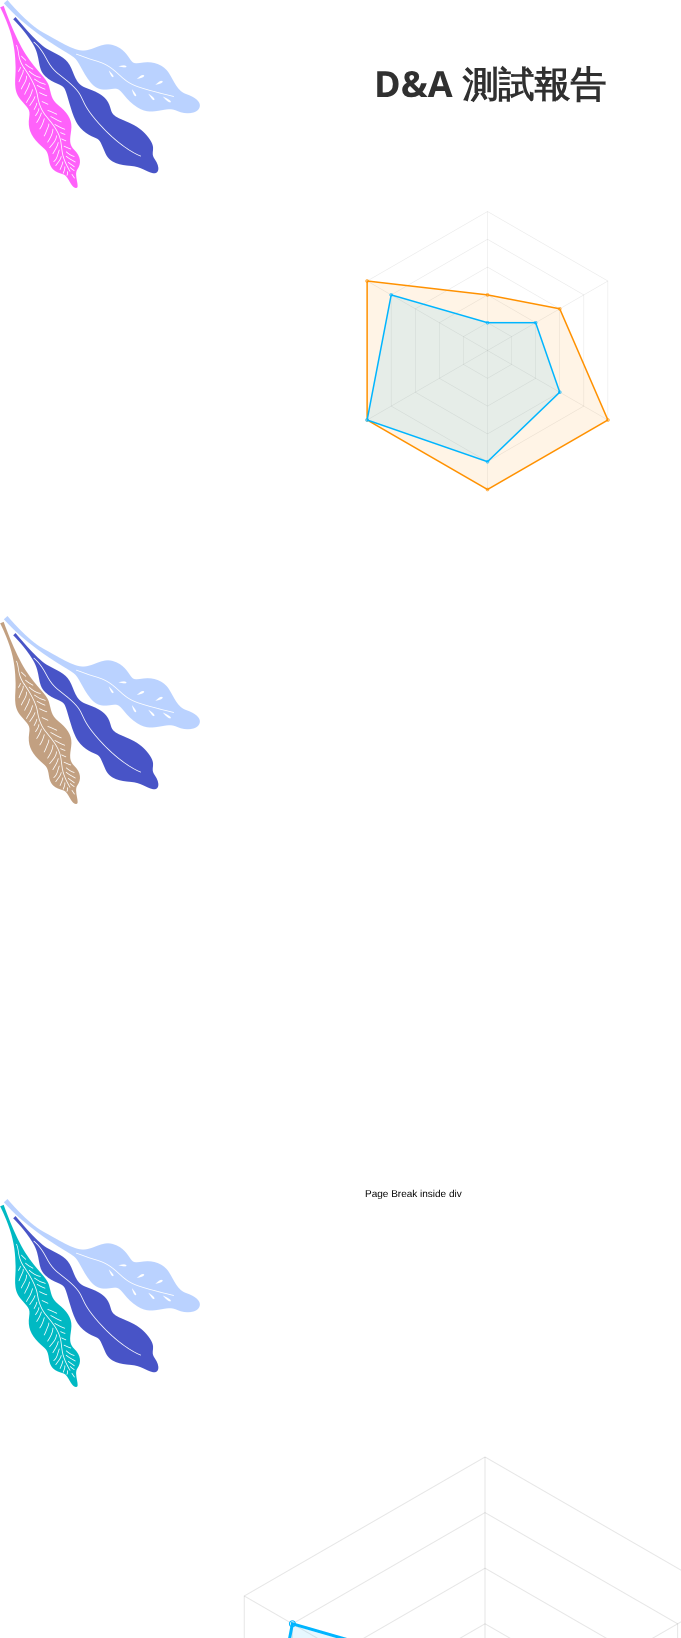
<svg xmlns="http://www.w3.org/2000/svg" width="681" height="1638">
<style>
.a{font:bold 36px Open Sans;fill:#303030}
.b{font:bold 36px WenQuanYi Zen Hei;fill:#303030}
.c{font:10px Liberation Sans;fill:#000}
</style>
<rect width="100%" height="100%" fill="#fff"/>
<image href="1.png" x="0" y="0" width="200" height="188"/>
<image href="2.png" x="365" y="203" width="285" height="289"/>
<image href="3.png" x="0" y="616" width="200" height="188"/>
<image href="4.png" x="0" y="1199" width="200" height="188"/>
<image href="5.png" x="243" y="1456" width="438" height="182"/>
<text class="a" x="374" y="97">D&amp;A</text>
<text class="b" x="462" y="97">測試報告</text>
<text class="c" x="365" y="1197">Page Break inside div</text>
<path fill="#fff" d="M379 1199h2v1H379z"/>
</svg>
